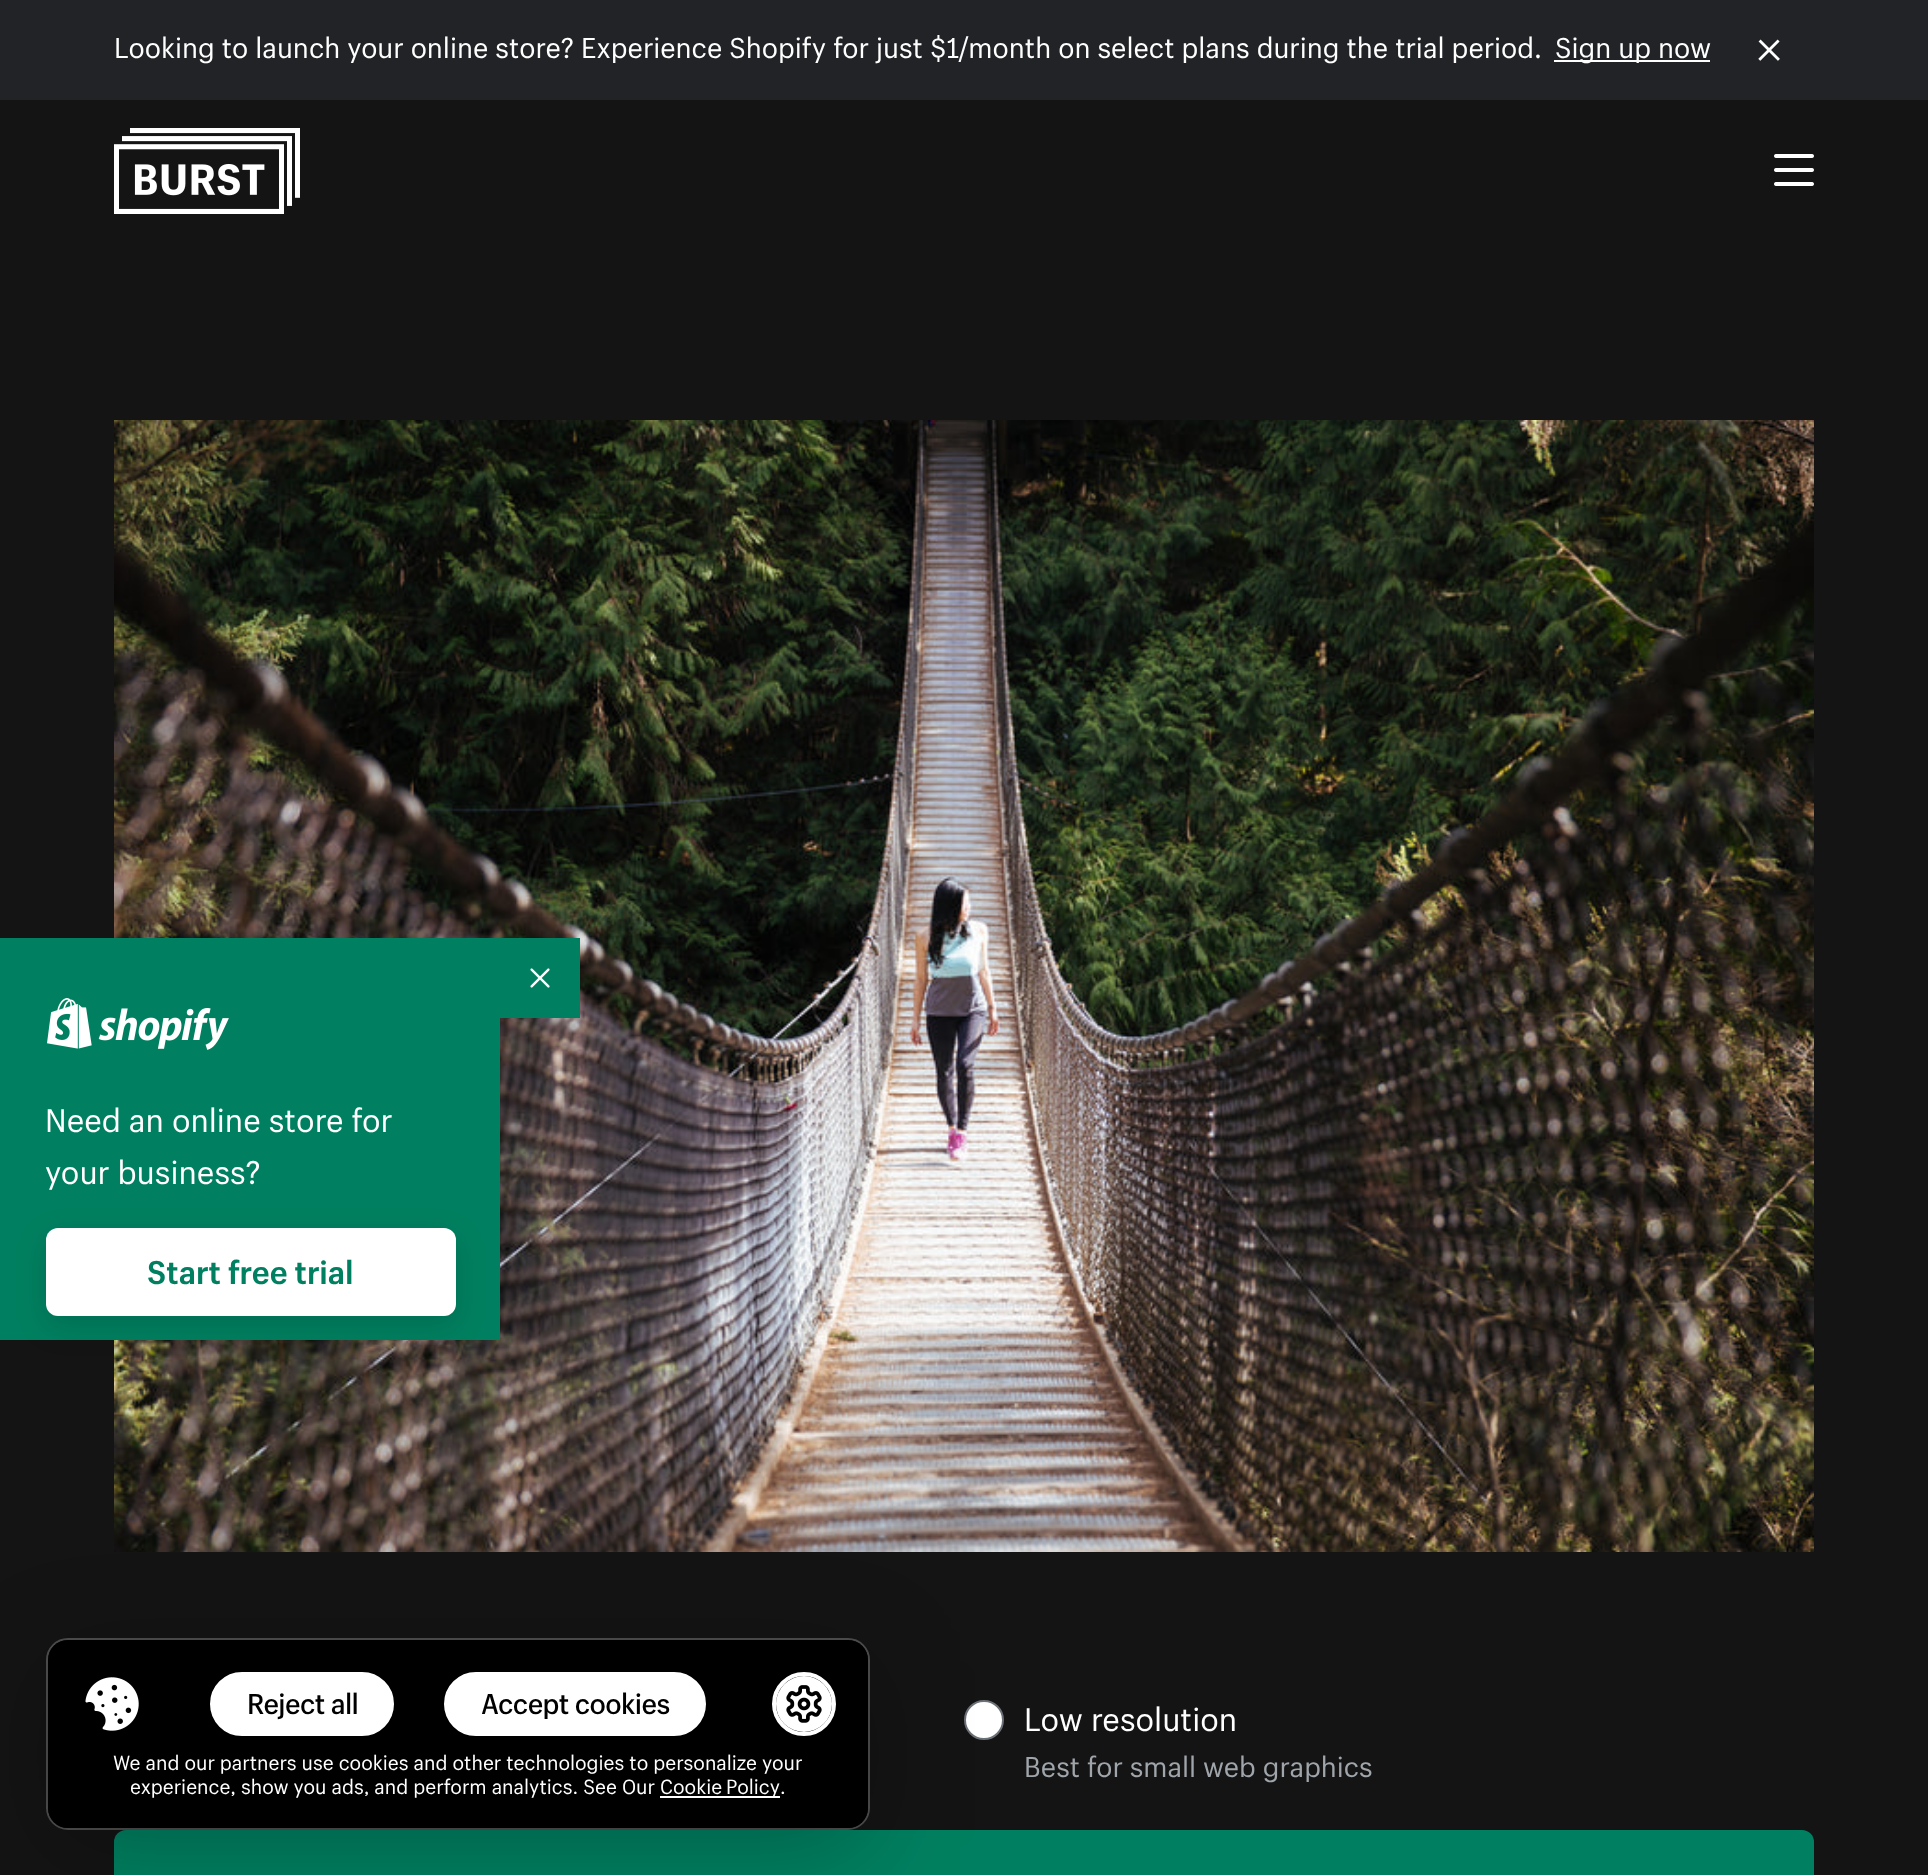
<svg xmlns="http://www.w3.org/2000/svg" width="1928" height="1875">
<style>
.a{font:28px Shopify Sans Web;fill:#fff}
.b{font:32px Shopify Sans Web;fill:#fff}
.c{font:bold 32px Shopify Sans Web;fill:#008060}
.d{font:27.9px Shopify Sans Web;fill:#9fa5ab}
.e{font:500 28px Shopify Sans;letter-spacing:-0.6px;fill:#000}
.f{font:20px Shopify Sans Web;fill:#fff}
</style>
<rect width="100%" height="100%" fill="#141414"/>
<path fill="#212326" d="M0 0h1928v100H0z"/>
<path fill="#fff" d="M1554 60h156v2H1554z"/>
<image href="1.png" x="1758" y="39" width="22" height="22"/>
<image href="2.png" x="114" y="128" width="186" height="86"/>
<image href="3.png" x="1774" y="154" width="40" height="32"/>
<image href="6.png" x="114" y="420" width="1700" height="1132"/>
<path fill="#008060" d="M500 938h80v80H500z"/>
<image href="4.png" x="530" y="968" width="20" height="20"/>
<path fill="#008060" d="M0 938h500v402H0z"/>
<image href="5.png" x="47" y="998" width="182" height="52"/>
<rect fill="#00000026" filter="blur(15px)" x="46" y="1238" width="410" height="88" rx="12"/>
<rect fill="#fff" x="46" y="1228" width="410" height="88" rx="12"/>
<circle fill="#fff" stroke="#6b7177" stroke-width="2" cx="984" cy="1720" r="19"/>
<rect fill="#008060" x="114" y="1830" width="1700" height="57" rx="12"/>
<rect fill="none" stroke="#ffffff40" stroke-width="2" x="47" y="1639" width="822" height="190" rx="21"/>
<rect fill="#00000040" filter="blur(50px)" x="48" y="1660" width="820" height="188" rx="20"/>
<rect fill="#000" x="48" y="1640" width="820" height="188" rx="20"/>
<image href="7.png" x="85" y="1677" width="54" height="54"/>
<rect fill="#fff" stroke="#fff" stroke-width="4" x="212" y="1674" width="180" height="60" rx="30"/>
<rect fill="#fff" stroke="#fff" stroke-width="4" x="446" y="1674" width="258" height="60" rx="30"/>
<circle fill="none" stroke="#fff" stroke-width="4" cx="804" cy="1704" r="30"/>
<circle fill="#fff" cx="804" cy="1704" r="28"/>
<image href="8.png" x="786" y="1685" width="36" height="38"/>
<path fill="#fff" d="M660 1796h120v2H660z"/>
<text class="a" x="114" y="58">Looking to launch your online store? Experience Shopify for just $1/month on select plans during the trial period.</text>
<text class="a" x="1555" y="58">Sign up now</text>
<text class="b" x="45" y="1132">Need an online store for</text>
<text class="b" x="45" y="1184">your business?</text>
<text class="c" x="147" y="1284">Start free trial</text>
<text class="b" x="1024" y="1731">Low resolution</text>
<text class="d" x="1024" y="1777">Best for small web graphics</text>
<text class="e" x="247" y="1714">Reject all</text>
<text class="e" x="481" y="1714">Accept cookies</text>
<text class="f" x="113" y="1770">We and our partners use cookies and other technologies to personalize your</text>
<text class="f" x="130" y="1794">experience, show you ads, and perform analytics. See Our</text>
<text class="f" x="660" y="1794" word-spacing="-1">Cookie Policy</text>
<text class="f" x="780" y="1794">.</text>
</svg>
